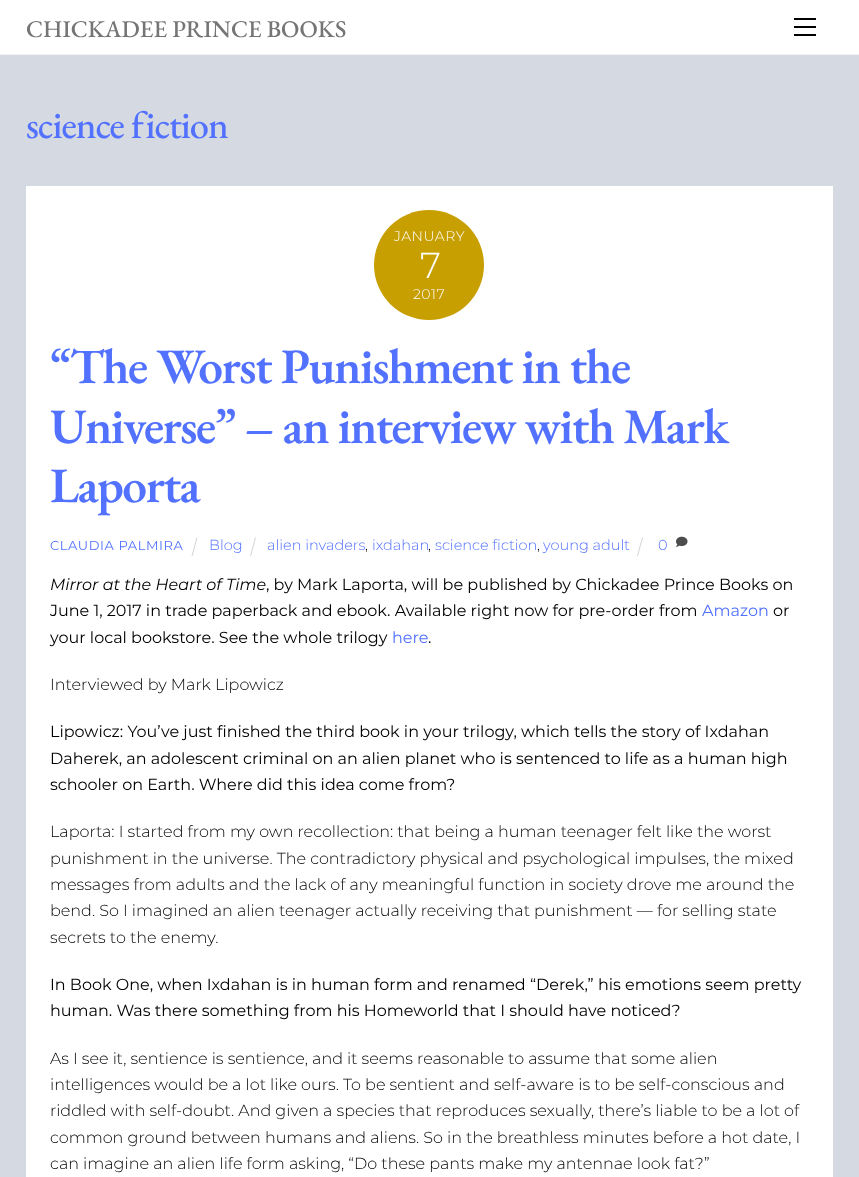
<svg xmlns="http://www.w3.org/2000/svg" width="859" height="1177">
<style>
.a{font:500 24px EB Garamond;fill:#757575}
.b{font:500 38.5px EB Garamond;letter-spacing:-1.1px;fill:#5271ff}
.c{font:300 14px Montserrat;letter-spacing:0.5px;fill:#fff}
.d{font:300 36px Montserrat;letter-spacing:-2px;fill:#fff}
.e{font:600 49.6px EB Garamond;letter-spacing:-1.5px;fill:#5271ff}
.f{font:13px Montserrat;letter-spacing:0.6px;fill:#5271ff}
.g{font:300 14.5px Montserrat;fill:#5271ff}
.h{font:300 14.5px Montserrat;fill:#000}
.i{font:italic 16px Montserrat;fill:#000}
.j{font:16px Montserrat;fill:#000}
.k{font:16px Montserrat;fill:#5271ff}
.l{font:300 16px Montserrat;fill:#000}
</style>
<rect width="100%" height="100%" fill="#d5d9e2"/>
<path fill="#fff" d="M0 0h859v54H0z"/>
<path fill="#f2f2f2" d="M0 54h859v1H0z"/>
<path fill="#000" d="M794 34h22v2H794z"/>
<path fill="#000" d="M794 18h22v2H794z"/>
<path fill="#000" d="M794 26h22v2H794z"/>
<path fill="#fff" d="M26 186h807v991H26z"/>
<circle fill="#c89f00" cx="429" cy="265" r="55"/>
<path fill="#d3d3d3" d="M196.5 537.5h1l-5 18.5h-1z"/>
<path fill="#d3d3d3" d="M255 537.5h1l-5 18.5h-1z"/>
<path fill="#d3d3d3" d="M642 537.5h1l-5 18.5h-1z"/>
<image href="1.png" x="676" y="536" width="12" height="11"/>
<text class="a" x="26" y="37">CHICKADEE PRINCE BOOKS</text>
<text class="b" x="26" y="138">science fiction</text>
<text class="c" x="394" y="241">JANUARY</text>
<text class="d" x="420" y="278">7</text>
<text class="c" x="413" y="299">2017</text>
<text class="e" x="50" y="383">“The Worst Punishment in the</text>
<text class="e" x="50" y="443">Universe” – an interview with Mark</text>
<text class="e" x="50" y="502">Laporta</text>
<text class="f" x="50" y="550">CLAUDIA PALMIRA</text>
<text class="g" x="209" y="550">Blog</text>
<text class="g" x="267" y="550">alien invaders</text>
<text class="h" x="365" y="550">,</text>
<text class="g" x="372" y="550">ixdahan</text>
<text class="h" x="428" y="550">,</text>
<text class="g" x="435" y="550">science fiction</text>
<text class="h" x="537" y="550">,</text>
<text class="g" x="543" y="550">young adult</text>
<text class="g" x="658" y="550">0</text>
<text class="i" x="50" y="590">Mirror at the Heart of Time</text>
<text class="j" x="266" y="590">, by Mark Laporta, will be published by Chickadee Prince Books on</text>
<text class="j" x="50" y="616">June 1, 2017 in trade paperback and ebook. Available right now for pre-order from</text>
<text class="k" x="702" y="616">Amazon</text>
<text class="j" x="773" y="616">or</text>
<text class="j" x="50" y="643">your local bookstore. See the whole trilogy</text>
<text class="k" x="392" y="643">here</text>
<text class="j" x="428" y="643">.</text>
<text class="l" x="50" y="690">Interviewed by Mark Lipowicz</text>
<text class="j" x="50" y="737">Lipowicz: You’ve just finished the third book in your trilogy, which tells the story of Ixdahan</text>
<text class="j" x="50" y="764">Daherek, an adolescent criminal on an alien planet who is sentenced to life as a human high</text>
<text class="j" x="50" y="790">schooler on Earth. Where did this idea come from?</text>
<text class="l" x="50" y="837">Laporta: I started from my own recollection: that being a human teenager felt like the worst</text>
<text class="l" x="50" y="864">punishment in the universe. The contradictory physical and psychological impulses, the mixed</text>
<text class="l" x="50" y="890">messages from adults and the lack of any meaningful function in society drove me around the</text>
<text class="l" x="50" y="916">bend. So I imagined an alien teenager actually receiving that punishment — for selling state</text>
<text class="l" x="50" y="943">secrets to the enemy.</text>
<text class="j" x="50" y="990">In Book One, when Ixdahan is in human form and renamed “Derek,” his emotions seem pretty</text>
<text class="j" x="50" y="1016">human. Was there something from his Homeworld that I should have noticed?</text>
<text class="l" x="50" y="1064">As I see it, sentience is sentience, and it seems reasonable to assume that some alien</text>
<text class="l" x="50" y="1090">intelligences would be a lot like ours. To be sentient and self-aware is to be self-conscious and</text>
<text class="l" x="50" y="1116">riddled with self-doubt. And given a species that reproduces sexually, there’s liable to be a lot of</text>
<text class="l" x="50" y="1143">common ground between humans and aliens. So in the breathless minutes before a hot date, I</text>
<text class="l" x="50" y="1169">can imagine an alien life form asking, “Do these pants make my antennae look fat?”</text>
</svg>
